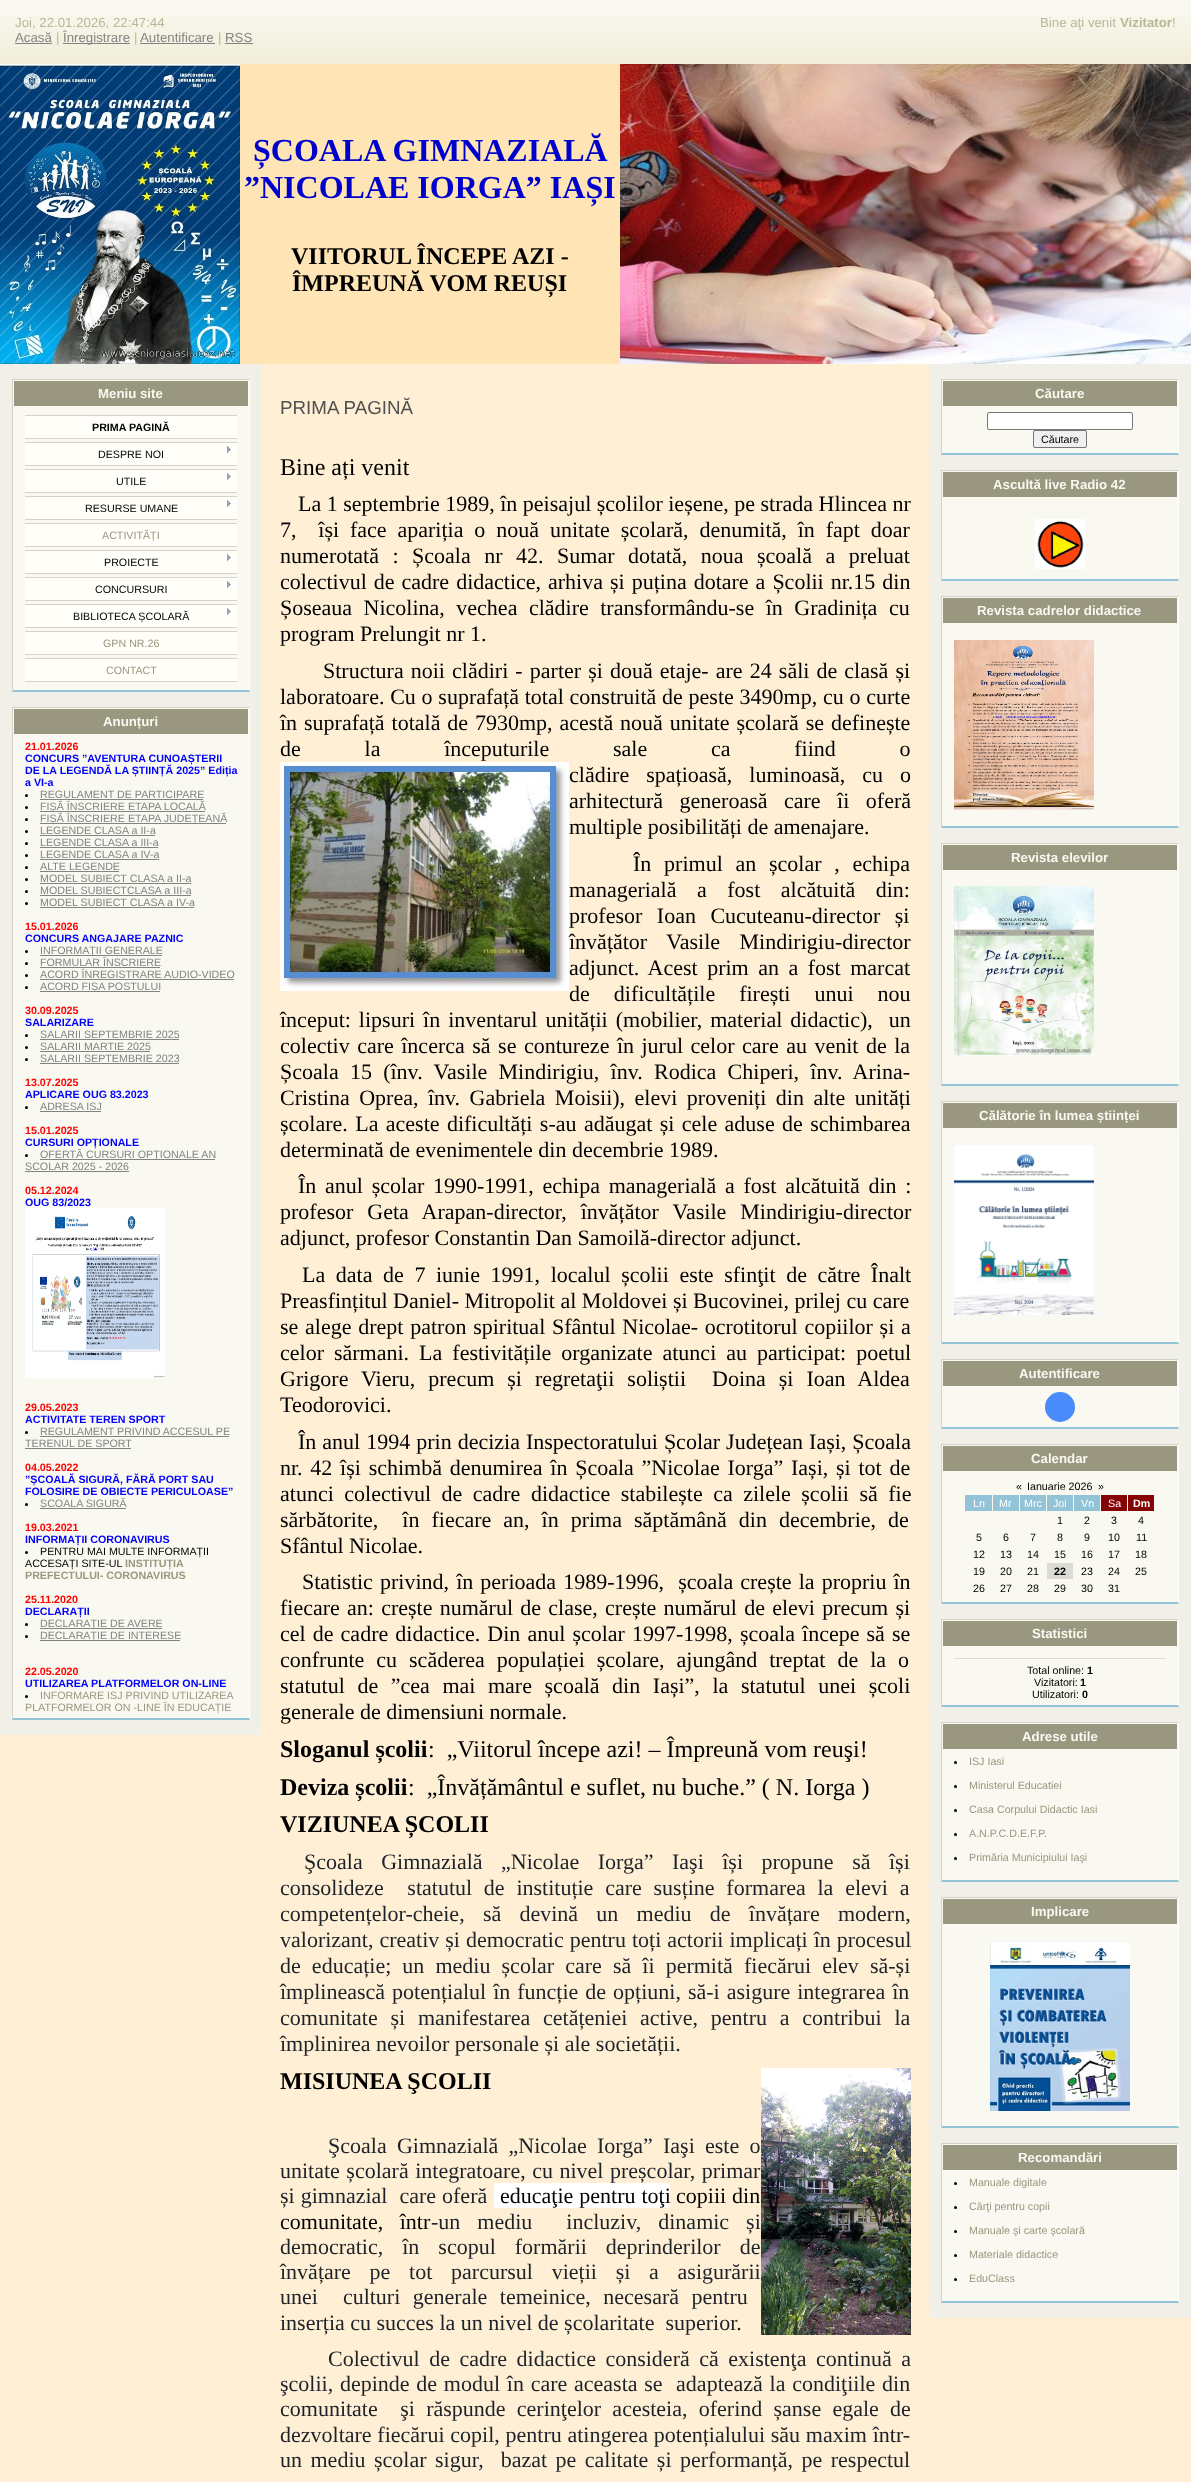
<svg xmlns="http://www.w3.org/2000/svg" width="1191" height="2482">
<style>
.a{font:13.25px Liberation Sans;fill:#bbb696}
.b{font:13.25px Liberation Sans;fill:#838383}
.c{font:bold 13.25px Liberation Sans;fill:#bbb696}
.d{font:bold 32px Liberation Serif;fill:#0000cd}
.e{font:bold 24px Liberation Serif;fill:#000}
.f{font:bold 13.25px Liberation Sans;fill:#faf9f1}
.g{font:bold 10.7px Liberation Sans;fill:#000}
.h{font:10.7px Liberation Sans;fill:#000}
.i{font:10.7px Liberation Sans;fill:#99977f}
.j{font:bold 10.7px Liberation Sans;fill:#f00}
.k{font:bold 10.7px Liberation Sans;fill:#00f}
.l{font:10.7px Liberation Sans;fill:#838383}
.m{font:bold 10.7px Liberation Sans;fill:#99977f}
.n{font:18.75px Liberation Sans;fill:#505050}
.o{font:24px Liberation Serif;fill:#000}
.p{font:22px Liberation Serif;fill:#000}
.q{font:22px Liberation Serif;fill:#1d2228}
.r{font:10.7px Liberation Sans;fill:#fff}
.s{font:bold 10.7px Liberation Sans;fill:#fff}
</style>
<rect width="100%" height="100%" fill="#ffefd5"/>
<path fill="#faf9f1" d="M0 0h1191v15H0z"/>
<image href="1.png" x="0" y="15" width="1191" height="49"/>
<path fill="#838383" d="M15 43h37v1H15z"/>
<path fill="#838383" d="M63 43h67v1H63z"/>
<path fill="#838383" d="M140 43h75v1H140z"/>
<path fill="#838383" d="M225 43h28v1H225z"/>
<path fill="#ffe4b5" d="M240 64h380v300H240z"/>
<image href="2.png" x="0" y="64" width="240" height="300"/>
<image href="3.png" x="620" y="64" width="571" height="300"/>
<path fill="#f1f0e8" d="M0 364h262v1371H0z"/>
<path fill="#faf9f1" d="M13 407h236v283H13z"/>
<path fill="#d3d2cb" d="M12 379h238v1H12z"/>
<path fill="#fff" d="M250 379v313l-1-2v-310z"/>
<path fill="#93c3d7" d="M250 692h-238l1-2h236z"/>
<path fill="#d3d2cb" d="M12 692v-313l1 1v310z"/>
<path fill="#99977f" stroke="#faf9f1" d="M13.5 380.5h235v26H13.5z"/>
<path fill="#fffef9" d="M25 416h212v22H25z"/>
<path fill="#d3d2cb" d="M25 415h212v1H25z"/>
<path fill="#d3d2cb" d="M25 438h212v1H25z"/>
<path fill="#fffef9" d="M25 443h212v22H25z"/>
<path fill="#d3d2cb" d="M25 442h212v1H25z"/>
<path fill="#d3d2cb" d="M25 465h212v1H25z"/>
<image href="4.png" x="227" y="446" width="4" height="7"/>
<path fill="#fffef9" d="M25 470h212v22H25z"/>
<path fill="#d3d2cb" d="M25 469h212v1H25z"/>
<path fill="#d3d2cb" d="M25 492h212v1H25z"/>
<image href="4.png" x="227" y="473" width="4" height="7"/>
<path fill="#fffef9" d="M25 497h212v22H25z"/>
<path fill="#d3d2cb" d="M25 496h212v1H25z"/>
<path fill="#d3d2cb" d="M25 519h212v1H25z"/>
<image href="4.png" x="227" y="500" width="4" height="7"/>
<path fill="#fffef9" d="M25 524h212v22H25z"/>
<path fill="#d3d2cb" d="M25 523h212v1H25z"/>
<path fill="#d3d2cb" d="M25 546h212v1H25z"/>
<path fill="#fffef9" d="M25 551h212v22H25z"/>
<path fill="#d3d2cb" d="M25 550h212v1H25z"/>
<path fill="#d3d2cb" d="M25 573h212v1H25z"/>
<image href="4.png" x="227" y="554" width="4" height="7"/>
<path fill="#fffef9" d="M25 578h212v22H25z"/>
<path fill="#d3d2cb" d="M25 577h212v1H25z"/>
<path fill="#d3d2cb" d="M25 600h212v1H25z"/>
<image href="4.png" x="227" y="581" width="4" height="7"/>
<path fill="#fffef9" d="M25 605h212v22H25z"/>
<path fill="#d3d2cb" d="M25 604h212v1H25z"/>
<path fill="#d3d2cb" d="M25 627h212v1H25z"/>
<image href="4.png" x="227" y="608" width="4" height="7"/>
<path fill="#fffef9" d="M25 632h212v22H25z"/>
<path fill="#d3d2cb" d="M25 631h212v1H25z"/>
<path fill="#d3d2cb" d="M25 654h212v1H25z"/>
<path fill="#fffef9" d="M25 659h212v22H25z"/>
<path fill="#d3d2cb" d="M25 658h212v1H25z"/>
<path fill="#d3d2cb" d="M25 681h212v1H25z"/>
<path fill="#faf9f1" d="M13 735h236v983H13z"/>
<path fill="#d3d2cb" d="M12 707h238v1H12z"/>
<path fill="#fff" d="M250 707v1013l-1-2v-1010z"/>
<path fill="#93c3d7" d="M250 1720h-238l1-2h236z"/>
<path fill="#d3d2cb" d="M12 1720v-1013l1 1v1010z"/>
<path fill="#99977f" stroke="#faf9f1" d="M13.5 708.5h235v26H13.5z"/>
<circle fill="#000" cx="26.5" cy="795.5" r="1.5"/>
<path fill="#838383" d="M40 799h163v1H40z"/>
<circle fill="#000" cx="26.5" cy="807.5" r="1.5"/>
<path fill="#838383" d="M40 811h165v1H40z"/>
<circle fill="#000" cx="26.5" cy="819.5" r="1.5"/>
<path fill="#838383" d="M40 823h186v1H40z"/>
<circle fill="#000" cx="26.5" cy="831.5" r="1.5"/>
<path fill="#838383" d="M40 835h115v1H40z"/>
<circle fill="#000" cx="26.5" cy="843.5" r="1.5"/>
<path fill="#838383" d="M40 847h118v1H40z"/>
<circle fill="#000" cx="26.5" cy="855.5" r="1.5"/>
<path fill="#838383" d="M40 859h119v1H40z"/>
<circle fill="#000" cx="26.5" cy="867.5" r="1.5"/>
<path fill="#838383" d="M40 871h79v1H40z"/>
<circle fill="#000" cx="26.5" cy="879.5" r="1.5"/>
<path fill="#838383" d="M40 883h151v1H40z"/>
<circle fill="#000" cx="26.5" cy="891.5" r="1.5"/>
<path fill="#838383" d="M40 895h151v1H40z"/>
<circle fill="#000" cx="26.5" cy="903.5" r="1.5"/>
<path fill="#838383" d="M40 907h154v1H40z"/>
<circle fill="#000" cx="26.5" cy="951.5" r="1.5"/>
<path fill="#838383" d="M40 955h122v1H40z"/>
<circle fill="#000" cx="26.5" cy="963.5" r="1.5"/>
<path fill="#838383" d="M40 967h120v1H40z"/>
<circle fill="#000" cx="26.5" cy="975.5" r="1.5"/>
<path fill="#838383" d="M40 979h194v1H40z"/>
<circle fill="#000" cx="26.5" cy="987.5" r="1.5"/>
<path fill="#838383" d="M40 991h120v1H40z"/>
<circle fill="#000" cx="26.5" cy="1035.5" r="1.5"/>
<path fill="#838383" d="M40 1039h139v1H40z"/>
<circle fill="#000" cx="26.5" cy="1047.5" r="1.5"/>
<path fill="#838383" d="M40 1051h110v1H40z"/>
<circle fill="#000" cx="26.5" cy="1059.5" r="1.5"/>
<path fill="#838383" d="M40 1063h139v1H40z"/>
<circle fill="#000" cx="26.5" cy="1107.5" r="1.5"/>
<path fill="#838383" d="M40 1111h61v1H40z"/>
<circle fill="#000" cx="26.5" cy="1155.5" r="1.5"/>
<path fill="#838383" d="M40 1159h175v1H40z"/>
<path fill="#838383" d="M25 1171h104v1H25z"/>
<image href="5.png" x="25" y="1208" width="140" height="170"/>
<circle fill="#000" cx="26.5" cy="1432.5" r="1.5"/>
<path fill="#838383" d="M40 1436h189v1H40z"/>
<path fill="#838383" d="M25 1448h106v1H25z"/>
<circle fill="#000" cx="26.5" cy="1504.5" r="1.5"/>
<path fill="#838383" d="M40 1508h86v1H40z"/>
<circle fill="#000" cx="26.5" cy="1552.5" r="1.5"/>
<circle fill="#000" cx="26.5" cy="1624.5" r="1.5"/>
<path fill="#838383" d="M40 1628h122v1H40z"/>
<circle fill="#000" cx="26.5" cy="1636.5" r="1.5"/>
<path fill="#838383" d="M40 1640h140v1H40z"/>
<circle fill="#000" cx="26.5" cy="1696.5" r="1.5"/>
<image href="6.png" x="280" y="762" width="289" height="229"/>
<image href="7.png" x="761" y="2068" width="150" height="267"/>
<path fill="#fff" d="M494 2183h176v25H494z"/>
<path fill="#f1f0e8" d="M929 364h262v1954H929z"/>
<path fill="#faf9f1" d="M942 407h236v46H942z"/>
<path fill="#d3d2cb" d="M941 379h238v1H941z"/>
<path fill="#fff" d="M1179 379v76l-1-2v-73z"/>
<path fill="#93c3d7" d="M1179 455h-238l1-2h236z"/>
<path fill="#d3d2cb" d="M941 455v-76l1 1v73z"/>
<path fill="#99977f" stroke="#faf9f1" d="M942.5 380.5h235v26H942.5z"/>
<rect fill="#fff" stroke="#767676" x="987.5" y="412.5" width="145" height="17" rx="1.5"/>
<rect fill="#efefef" stroke="#767676" x="1033.5" y="430.5" width="53" height="17" rx="1.5"/>
<path fill="#faf9f1" d="M942 498h236v81H942z"/>
<path fill="#d3d2cb" d="M941 470h238v1H941z"/>
<path fill="#fff" d="M1179 470v111l-1-2v-108z"/>
<path fill="#93c3d7" d="M1179 581h-238l1-2h236z"/>
<path fill="#d3d2cb" d="M941 581v-111l1 1v108z"/>
<path fill="#99977f" stroke="#faf9f1" d="M942.5 471.5h235v26H942.5z"/>
<image href="8.png" x="1035" y="519" width="50" height="50"/>
<path fill="#faf9f1" d="M942 624h236v202H942z"/>
<path fill="#d3d2cb" d="M941 596h238v1H941z"/>
<path fill="#fff" d="M1179 596v232l-1-2v-229z"/>
<path fill="#93c3d7" d="M1179 828h-238l1-2h236z"/>
<path fill="#d3d2cb" d="M941 828v-232l1 1v229z"/>
<path fill="#99977f" stroke="#faf9f1" d="M942.5 597.5h235v26H942.5z"/>
<image href="9.png" x="954" y="640" width="140" height="170"/>
<path fill="#faf9f1" d="M942 871h236v213H942z"/>
<path fill="#d3d2cb" d="M941 843h238v1H941z"/>
<path fill="#fff" d="M1179 843v243l-1-2v-240z"/>
<path fill="#93c3d7" d="M1179 1086h-238l1-2h236z"/>
<path fill="#d3d2cb" d="M941 1086v-243l1 1v240z"/>
<path fill="#99977f" stroke="#faf9f1" d="M942.5 844.5h235v26H942.5z"/>
<image href="10.png" x="954" y="886" width="140" height="170"/>
<path fill="#faf9f1" d="M942 1129h236v213H942z"/>
<path fill="#d3d2cb" d="M941 1101h238v1H941z"/>
<path fill="#fff" d="M1179 1101v243l-1-2v-240z"/>
<path fill="#93c3d7" d="M1179 1344h-238l1-2h236z"/>
<path fill="#d3d2cb" d="M941 1344v-243l1 1v240z"/>
<path fill="#99977f" stroke="#faf9f1" d="M942.5 1102.5h235v26H942.5z"/>
<image href="11.png" x="954" y="1145" width="140" height="170"/>
<path fill="#faf9f1" d="M942 1387h236v40H942z"/>
<path fill="#d3d2cb" d="M941 1359h238v1H941z"/>
<path fill="#fff" d="M1179 1359v70l-1-2v-67z"/>
<path fill="#93c3d7" d="M1179 1429h-238l1-2h236z"/>
<path fill="#d3d2cb" d="M941 1429v-70l1 1v67z"/>
<path fill="#99977f" stroke="#faf9f1" d="M942.5 1360.5h235v26H942.5z"/>
<circle fill="#498bfa" cx="1060" cy="1407" r="15"/>
<path fill="#faf9f1" d="M942 1472h236v130H942z"/>
<path fill="#d3d2cb" d="M941 1444h238v1H941z"/>
<path fill="#fff" d="M1179 1444v160l-1-2v-157z"/>
<path fill="#93c3d7" d="M1179 1604h-238l1-2h236z"/>
<path fill="#d3d2cb" d="M941 1604v-160l1 1v157z"/>
<path fill="#99977f" stroke="#faf9f1" d="M942.5 1445.5h235v26H942.5z"/>
<path fill="#93c3d7" d="M965 1495h27v16H965z"/>
<path fill="#93c3d7" d="M993 1495h26v16H993z"/>
<path fill="#93c3d7" d="M1020 1495h26v16H1020z"/>
<path fill="#93c3d7" d="M1047 1495h26v16H1047z"/>
<path fill="#93c3d7" d="M1074 1495h26v16H1074z"/>
<path fill="#840304" d="M1101 1495h26v16H1101z"/>
<path fill="#840304" d="M1128 1495h26v16H1128z"/>
<path fill="#dcdbd4" d="M1047 1563h26v16H1047z"/>
<path fill="#faf9f1" d="M942 1647h236v58H942z"/>
<path fill="#d3d2cb" d="M941 1619h238v1H941z"/>
<path fill="#fff" d="M1179 1619v88l-1-2v-85z"/>
<path fill="#93c3d7" d="M1179 1707h-238l1-2h236z"/>
<path fill="#d3d2cb" d="M941 1707v-88l1 1v85z"/>
<path fill="#99977f" stroke="#faf9f1" d="M942.5 1620.5h235v26H942.5z"/>
<path fill="#dcdbd4" d="M954 1658h212v1H954z"/>
<path fill="#faf9f1" d="M942 1750h236v130H942z"/>
<path fill="#d3d2cb" d="M941 1722h238v1H941z"/>
<path fill="#fff" d="M1179 1722v160l-1-2v-157z"/>
<path fill="#93c3d7" d="M1179 1882h-238l1-2h236z"/>
<path fill="#d3d2cb" d="M941 1882v-160l1 1v157z"/>
<path fill="#99977f" stroke="#faf9f1" d="M942.5 1723.5h235v26H942.5z"/>
<circle fill="#000" cx="955.5" cy="1762.5" r="1.5"/>
<circle fill="#000" cx="955.5" cy="1786.5" r="1.5"/>
<circle fill="#000" cx="955.5" cy="1810.5" r="1.5"/>
<circle fill="#000" cx="955.5" cy="1834.5" r="1.5"/>
<circle fill="#000" cx="955.5" cy="1858.5" r="1.5"/>
<path fill="#faf9f1" d="M942 1925h236v201H942z"/>
<path fill="#d3d2cb" d="M941 1897h238v1H941z"/>
<path fill="#fff" d="M1179 1897v231l-1-2v-228z"/>
<path fill="#93c3d7" d="M1179 2128h-238l1-2h236z"/>
<path fill="#d3d2cb" d="M941 2128v-231l1 1v228z"/>
<path fill="#99977f" stroke="#faf9f1" d="M942.5 1898.5h235v26H942.5z"/>
<image href="12.png" x="990" y="1941" width="140" height="170"/>
<path fill="#faf9f1" d="M942 2171h236v130H942z"/>
<path fill="#d3d2cb" d="M941 2143h238v1H941z"/>
<path fill="#fff" d="M1179 2143v160l-1-2v-157z"/>
<path fill="#93c3d7" d="M1179 2303h-238l1-2h236z"/>
<path fill="#d3d2cb" d="M941 2303v-160l1 1v157z"/>
<path fill="#99977f" stroke="#faf9f1" d="M942.5 2144.5h235v26H942.5z"/>
<circle fill="#000" cx="955.5" cy="2183.5" r="1.5"/>
<circle fill="#000" cx="955.5" cy="2207.5" r="1.5"/>
<circle fill="#000" cx="955.5" cy="2231.5" r="1.5"/>
<circle fill="#000" cx="955.5" cy="2255.5" r="1.5"/>
<circle fill="#000" cx="955.5" cy="2279.5" r="1.5"/>
<text class="a" x="15" y="27">Joi, 22.01.2026, 22:47:44</text>
<text class="b" x="15" y="42">Acasă</text>
<text class="a" x="56" y="42">|</text>
<text class="b" x="63" y="42">Înregistrare</text>
<text class="a" x="134" y="42">|</text>
<text class="b" x="140" y="42">Autentificare</text>
<text class="a" x="218" y="42">|</text>
<text class="b" x="225" y="42">RSS</text>
<text class="a" x="1040" y="27">Bine aţi venit</text>
<text class="c" x="1120" y="27">Vizitator</text>
<text class="a" x="1172" y="27">!</text>
<text class="d" x="253" y="161">ȘCOALA GIMNAZIALĂ</text>
<text class="d" x="244" y="198">”NICOLAE IORGA” IAȘI</text>
<text class="e" x="291" y="264">VIITORUL ÎNCEPE AZI -</text>
<text class="e" x="292" y="291">ÎMPREUNĂ VOM REUȘI</text>
<text class="f" x="98" y="398">Meniu site</text>
<text class="g" x="92" y="431">PRIMA PAGINĂ</text>
<text class="h" x="98" y="458">DESPRE NOI</text>
<text class="h" x="116" y="485">UTILE</text>
<text class="h" x="85" y="512">RESURSE UMANE</text>
<text class="i" x="102" y="539">ACTIVITĂȚI</text>
<text class="h" x="104" y="566">PROIECTE</text>
<text class="h" x="95" y="593">CONCURSURI</text>
<text class="h" x="73" y="620">BIBLIOTECA ȘCOLARĂ</text>
<text class="i" x="103" y="647">GPN NR.26</text>
<text class="i" x="106" y="674">CONTACT</text>
<text class="f" x="103" y="726">Anunțuri</text>
<text class="j" x="25" y="750">21.01.2026</text>
<text class="k" x="25" y="762">CONCURS ”AVENTURA CUNOAȘTERII</text>
<text class="k" x="25" y="774">DE LA LEGENDĂ LA ȘTIINȚĂ 2025” Ediția</text>
<text class="k" x="25" y="786">a VI-a</text>
<text class="l" x="40" y="798">REGULAMENT DE PARTICIPARE</text>
<text class="l" x="40" y="810">FIȘĂ ÎNSCRIERE ETAPA LOCALĂ</text>
<text class="l" x="40" y="822">FIȘĂ ÎNSCRIERE ETAPA JUDEȚEANĂ</text>
<text class="l" x="40" y="834">LEGENDE CLASA a II-a</text>
<text class="l" x="40" y="846">LEGENDE CLASA a III-a</text>
<text class="l" x="40" y="858">LEGENDE CLASA a IV-a</text>
<text class="l" x="40" y="870">ALTE LEGENDE</text>
<text class="l" x="40" y="882">MODEL SUBIECT CLASA a II-a</text>
<text class="l" x="40" y="894">MODEL SUBIECTCLASA a III-a</text>
<text class="l" x="40" y="906">MODEL SUBIECT CLASA a IV-a</text>
<text class="j" x="25" y="930">15.01.2026</text>
<text class="k" x="25" y="942">CONCURS ANGAJARE PAZNIC</text>
<text class="l" x="40" y="954">INFORMAȚII GENERALE</text>
<text class="l" x="40" y="966">FORMULAR ÎNSCRIERE</text>
<text class="l" x="40" y="978">ACORD ÎNREGISTRARE AUDIO-VIDEO</text>
<text class="l" x="40" y="990">ACORD FIȘA POSTULUI</text>
<text class="j" x="25" y="1014">30.09.2025</text>
<text class="k" x="25" y="1026">SALARIZARE</text>
<text class="l" x="40" y="1038">SALARII SEPTEMBRIE 2025</text>
<text class="l" x="40" y="1050">SALARII MARTIE 2025</text>
<text class="l" x="40" y="1062">SALARII SEPTEMBRIE 2023</text>
<text class="j" x="25" y="1086">13.07.2025</text>
<text class="k" x="25" y="1098">APLICARE OUG 83.2023</text>
<text class="l" x="40" y="1110">ADRESA ISJ</text>
<text class="j" x="25" y="1134">15.01.2025</text>
<text class="k" x="25" y="1146">CURSURI OPȚIONALE</text>
<text class="l" x="40" y="1158">OFERTĂ CURSURI OPȚIONALE AN</text>
<text class="l" x="25" y="1170">ȘCOLAR 2025 - 2026</text>
<text class="j" x="25" y="1194">05.12.2024</text>
<text class="k" x="25" y="1206">OUG 83/2023</text>
<text class="j" x="25" y="1411">29.05.2023</text>
<text class="k" x="25" y="1423">ACTIVITATE TEREN SPORT</text>
<text class="l" x="40" y="1435">REGULAMENT PRIVIND ACCESUL PE</text>
<text class="l" x="25" y="1447">TERENUL DE SPORT</text>
<text class="j" x="25" y="1471">04.05.2022</text>
<text class="k" x="25" y="1483">”ȘCOALĂ SIGURĂ, FĂRĂ PORT SAU</text>
<text class="k" x="25" y="1495">FOLOSIRE DE OBIECTE PERICULOASE”</text>
<text class="l" x="40" y="1507">ȘCOALA SIGURĂ</text>
<text class="j" x="25" y="1531">19.03.2021</text>
<text class="k" x="25" y="1543">INFORMAȚII CORONAVIRUS</text>
<text class="h" x="40" y="1555">PENTRU MAI MULTE INFORMAȚII</text>
<text class="h" x="25" y="1567">ACCESAȚI SITE-UL</text>
<text class="m" x="125" y="1567">INSTITUȚIA</text>
<text class="m" x="25" y="1579">PREFECTULUI- CORONAVIRUS</text>
<text class="j" x="25" y="1603">25.11.2020</text>
<text class="k" x="25" y="1615">DECLARAȚII</text>
<text class="l" x="40" y="1627">DECLARAȚIE DE AVERE</text>
<text class="l" x="40" y="1639">DECLARAȚIE DE INTERESE</text>
<text class="j" x="25" y="1675">22.05.2020</text>
<text class="k" x="25" y="1687">UTILIZAREA PLATFORMELOR ON-LINE</text>
<text class="i" x="40" y="1699">INFORMARE ISJ PRIVIND UTILIZAREA</text>
<text class="i" x="25" y="1711">PLATFORMELOR ON -LINE ÎN EDUCAȚIE</text>
<text class="n" x="280" y="414">PRIMA PAGINĂ</text>
<text class="o" x="280" y="475">Bine ați venit</text>
<text class="p" x="298" y="511">La 1 septembrie 1989, în peisajul școlilor ieșene, pe strada Hlincea nr</text>
<text class="p" xml:space="preserve" x="280" y="537" word-spacing="5.4">7,  își face apariția o nouă unitate școlară, denumită, în fapt doar</text>
<text class="p" x="280" y="563" word-spacing="8">numerotată : Școala nr 42. Sumar dotată, noua școală a preluat</text>
<text class="p" x="280" y="589" word-spacing="1.5">colectivul de cadre didactice, arhiva și puțina dotare a Școlii nr.15 din</text>
<text class="p" x="280" y="615" word-spacing="6">Șoseaua Nicolina, vechea clădire transformându-se în Gradinița cu</text>
<text class="p" x="280" y="641">program Prelungit nr 1.</text>
<text class="p" x="323" y="678" word-spacing="1.6">Structura noii clădiri - parter și două etaje- are 24 săli de clasă și</text>
<text class="p" x="280" y="704" word-spacing="0.25">laboratoare. Cu o suprafață total construită de peste 3490mp, cu o curte</text>
<text class="p" x="280" y="730" word-spacing="1.4">în suprafață totală de 7930mp, acestă nouă unitate școlară se definește</text>
<text class="p" x="280" y="756" word-spacing="58.25">de la începuturile sale ca fiind o</text>
<text class="p" x="569" y="782">clăd</text>
<text class="p" x="606" y="782" word-spacing="11.5">ire spațioasă, luminoasă, cu o</text>
<text class="p" x="569" y="808" word-spacing="11">arhitectură generoasă care îi oferă</text>
<text class="p" x="569" y="834">multiple posibilități de amenajare.</text>
<text class="p" x="633" y="871" word-spacing="7.25">În primul an școlar , echipa</text>
<text class="p" x="569" y="897" word-spacing="15">managerială a fost alcătuită din:</text>
<text class="p" x="569" y="923" word-spacing="9">profesor Ioan Cucuteanu-director și</text>
<text class="p" x="569" y="949" word-spacing="14">învățător Vasile Mindirigiu-director</text>
<text class="p" x="569" y="975" word-spacing="4">adjunct. Acest prim an a fost marcat</text>
<text class="p" x="569" y="1001" word-spacing="18.5">de dificultățile firești unui nou</text>
<text class="p" xml:space="preserve" x="280" y="1027" word-spacing="2.5">început: lipsuri în inventarul unității (mobilier, material didactic),  un</text>
<text class="p" x="280" y="1053" word-spacing="2">colectiv care încerca să se contureze în jurul celor care au venit de la</text>
<text class="p" x="280" y="1079" word-spacing="5.75">Școala 15 (înv. Vasile Mindirigiu, înv. Rodica Chiperi, înv. Arina-</text>
<text class="p" x="280" y="1105" word-spacing="4">Cristina Oprea, înv. Gabriela Moisii), elevi proveniți din alte unități</text>
<text class="p" x="280" y="1131" word-spacing="1.9">școlare. La aceste dificultăți s-au adăugat și cele aduse de schimbarea</text>
<text class="p" x="280" y="1157">determinată de evenimentele din decembrie 1989.</text>
<text class="p" x="298" y="1193" word-spacing="3.25">În anul școlar 1990-1991, echipa managerială a fost alcătuită din :</text>
<text class="p" x="280" y="1219" word-spacing="8.5">profesor Geta Arapan-director, învățător Vasile Mindirigiu-director</text>
<text class="p" x="280" y="1245">adjunct, profesor Constantin Dan Samoilă-director adjunct.</text>
<text class="p" x="302" y="1282" word-spacing="5.1">La data de 7 iunie 1991, localul școlii este sfinţit de către Înalt</text>
<text class="p" x="280" y="1308">Preasfințitul Daniel- Mitropolit al Moldovei și Bucovinei, prilej cu care</text>
<text class="p" x="280" y="1334" word-spacing="1.25">se alege drept patron spiritual Sfântul Nicolae- ocrotitorul copiilor și a</text>
<text class="p" x="280" y="1360" word-spacing="4.5">celor sărmani. La festivitățile organizate atunci au participat: poetul</text>
<text class="p" xml:space="preserve" x="280" y="1386" word-spacing="7.5">Grigore Vieru, precum și regretaţii soliștii  Doina și Ioan Aldea</text>
<text class="p" x="280" y="1412">Teodorovici.</text>
<text class="p" x="298" y="1449" word-spacing="0.5">În anul 1994 prin decizia Inspectoratului Școlar Județean Iași, Școala</text>
<text class="p" x="280" y="1475" word-spacing="2.25">nr. 42 își schimbă denumirea în Școala ”Nicolae Iorga” Iași, și tot de</text>
<text class="p" x="280" y="1501" word-spacing="5">atunci colectivul de cadre didactice stabilește ca zilele școlii să fie</text>
<text class="p" xml:space="preserve" x="280" y="1527" word-spacing="6.5">sărbătorite,  în fiecare an, în prima săptămână din decembrie, de</text>
<text class="p" x="280" y="1553">Sfântul Nicolae.</text>
<text class="p" xml:space="preserve" x="302" y="1589" word-spacing="1.6">Statistic privind, în perioada 1989-1996,  școala crește la propriu în</text>
<text class="p" x="280" y="1615" word-spacing="1.75">fiecare an: crește numărul de clase, crește numărul de elevi precum și</text>
<text class="p" x="280" y="1641" word-spacing="1.6">cel de cadre didactice. Din anul școlar 1997-1998, școala începe să se</text>
<text class="p" x="280" y="1667" word-spacing="6.5">confrunte cu scăderea populației școlare, ajungând treptat de la o</text>
<text class="p" x="280" y="1693" word-spacing="7.1">statutul de ”cea mai mare școală din Iași”, la statutul unei școli</text>
<text class="p" x="280" y="1719">generale de dimensiuni normale.</text>
<text class="e" x="280" y="1757">Sloganul școlii</text>
<text class="o" xml:space="preserve" x="428" y="1757">:  „Viitorul începe azi! – Împreună vom reuşi!</text>
<text class="e" x="280" y="1795">Deviza școlii</text>
<text class="o" xml:space="preserve" x="408" y="1795">:  „Învățământul e suflet, nu buche.” ( N. Iorga )</text>
<text class="e" x="280" y="1832">VIZIUNEA ȘCOLII</text>
<text class="q" x="304" y="1869" word-spacing="13">Şcoala Gimnazială „Nicolae Iorga” Iaşi își propune să își</text>
<text class="q" xml:space="preserve" x="280" y="1895" word-spacing="6.25">consolideze  statutul de instituție care susține formarea la elevi a</text>
<text class="q" x="280" y="1921" word-spacing="12.75">competențelor-cheie, să devină un mediu de învățare modern,</text>
<text class="q" x="280" y="1947" word-spacing="0.5">valorizant, creativ și democratic pentru toți actorii implicați în procesul</text>
<text class="q" x="280" y="1973" word-spacing="5.6">de educație; un mediu școlar care să îi permită fiecărui elev să-și</text>
<text class="q" x="280" y="1999" word-spacing="1.5">împlinească potențialul în funcție de opțiuni, să-i asigure integrarea în</text>
<text class="q" x="280" y="2025" word-spacing="7.25">comunitate și manifestarea cetățeniei active, pentru a contribui la</text>
<text class="q" x="280" y="2051">împlinirea nevoilor personale și ale societății.</text>
<text class="e" x="280" y="2089">MISIUNEA ŞCOLII</text>
<text class="q" x="328" y="2153" word-spacing="4.75">Şcoala Gimnazială „Nicolae Iorga” Iaşi este o</text>
<text class="q" x="280" y="2178" word-spacing="1">unitate școlară integratoare, cu nivel preșcolar, primar</text>
<text class="q" xml:space="preserve" x="280" y="2203" word-spacing="0.5">și gimnazial  care oferă</text>
<text class="p" x="500" y="2203" word-spacing="0.5">educaţie pentru toţi</text>
<text class="p" x="676" y="2203" word-spacing="0.5">copiii din</text>
<text class="p" x="280" y="2229" word-spacing="11">comunitate, într</text>
<text class="q" xml:space="preserve" x="431" y="2229" word-spacing="11.5">-un mediu  incluziv, dinamic și</text>
<text class="q" x="280" y="2254" word-spacing="13.5">democratic, în scopul formării deprinderilor de</text>
<text class="q" x="280" y="2279" word-spacing="13.25">învățare pe tot parcursul vieții și a asigurării</text>
<text class="q" xml:space="preserve" x="280" y="2304" word-spacing="7">unei  culturi generale temeinice, necesară pentru</text>
<text class="q" xml:space="preserve" x="280" y="2330">inserția cu succes la un nivel de școlaritate  superior.</text>
<text class="q" x="328" y="2366" word-spacing="4">Colectivul de cadre didactice consideră că existenţa continuă a</text>
<text class="q" xml:space="preserve" x="280" y="2391" word-spacing="1.25">şcolii, depinde de modul în care aceasta se  adaptează la condiţiile din</text>
<text class="q" xml:space="preserve" x="280" y="2416" word-spacing="5.75">comunitate  şi răspunde cerinţelor acesteia, oferind șanse egale de</text>
<text class="q" x="280" y="2442" word-spacing="0.25">dezvoltare fiecărui copil, pentru atingerea potențialului său maxim într-</text>
<text class="q" xml:space="preserve" x="280" y="2467" word-spacing="3">un mediu școlar sigur,  bazat pe calitate și performanță, pe respectul</text>
<text class="f" x="1035" y="398">Căutare</text>
<text class="h" x="1041" y="443">Căutare</text>
<text class="f" x="993" y="489">Ascultă live Radio 42</text>
<text class="f" x="977" y="615">Revista cadrelor didactice</text>
<text class="f" x="1011" y="862">Revista elevilor</text>
<text class="f" x="979" y="1120">Călătorie în lumea științei</text>
<text class="f" x="1019" y="1378">Autentificare</text>
<text class="f" x="1031" y="1463">Calendar</text>
<text class="h" x="1016" y="1490">«</text>
<text class="h" x="1027" y="1490">Ianuarie 2026</text>
<text class="h" x="1098" y="1490">»</text>
<text class="r" x="973" y="1507">Ln</text>
<text class="r" x="999" y="1507">Mr</text>
<text class="r" x="1024" y="1507">Mrc</text>
<text class="r" x="1053" y="1507">Joi</text>
<text class="r" x="1081" y="1507">Vn</text>
<text class="r" x="1108" y="1507">Sa</text>
<text class="s" x="1133" y="1507">Dm</text>
<text class="h" x="1057" y="1524">1</text>
<text class="h" x="1084" y="1524">2</text>
<text class="h" x="1111" y="1524">3</text>
<text class="h" x="1138" y="1524">4</text>
<text class="h" x="976" y="1541">5</text>
<text class="h" x="1003" y="1541">6</text>
<text class="h" x="1030" y="1541">7</text>
<text class="h" x="1057" y="1541">8</text>
<text class="h" x="1084" y="1541">9</text>
<text class="h" x="1108" y="1541">10</text>
<text class="h" x="1136" y="1541">11</text>
<text class="h" x="973" y="1558">12</text>
<text class="h" x="1000" y="1558">13</text>
<text class="h" x="1027" y="1558">14</text>
<text class="h" x="1054" y="1558">15</text>
<text class="h" x="1081" y="1558">16</text>
<text class="h" x="1108" y="1558">17</text>
<text class="h" x="1135" y="1558">18</text>
<text class="h" x="973" y="1575">19</text>
<text class="h" x="1000" y="1575">20</text>
<text class="h" x="1027" y="1575">21</text>
<text class="g" x="1054" y="1575">22</text>
<text class="h" x="1081" y="1575">23</text>
<text class="h" x="1108" y="1575">24</text>
<text class="h" x="1135" y="1575">25</text>
<text class="h" x="973" y="1592">26</text>
<text class="h" x="1000" y="1592">27</text>
<text class="h" x="1027" y="1592">28</text>
<text class="h" x="1054" y="1592">29</text>
<text class="h" x="1081" y="1592">30</text>
<text class="h" x="1108" y="1592">31</text>
<text class="f" x="1032" y="1638">Statistici</text>
<text class="h" x="1027" y="1674">Total online:</text>
<text class="g" x="1087" y="1674">1</text>
<text class="h" x="1034" y="1686">Vizitatori:</text>
<text class="g" x="1080" y="1686">1</text>
<text class="h" x="1032" y="1698">Utilizatori:</text>
<text class="g" x="1082" y="1698">0</text>
<text class="f" x="1022" y="1741">Adrese utile</text>
<text class="i" x="969" y="1765">ISJ Iasi</text>
<text class="i" x="969" y="1789">Ministerul Educatiei</text>
<text class="i" x="969" y="1813">Casa Corpului Didactic Iasi</text>
<text class="i" x="969" y="1837">A.N.P.C.D.E.F.P.</text>
<text class="i" x="969" y="1861">Primăria Municipiului Iaşi</text>
<text class="f" x="1031" y="1916">Implicare</text>
<text class="f" x="1018" y="2162">Recomandări</text>
<text class="i" x="969" y="2186">Manuale digitale</text>
<text class="i" x="969" y="2210">Cărţi pentru copii</text>
<text class="i" x="969" y="2234">Manuale şi carte şcolară</text>
<text class="i" x="969" y="2258">Materiale didactice</text>
<text class="i" x="969" y="2282">EduClass</text>
</svg>
